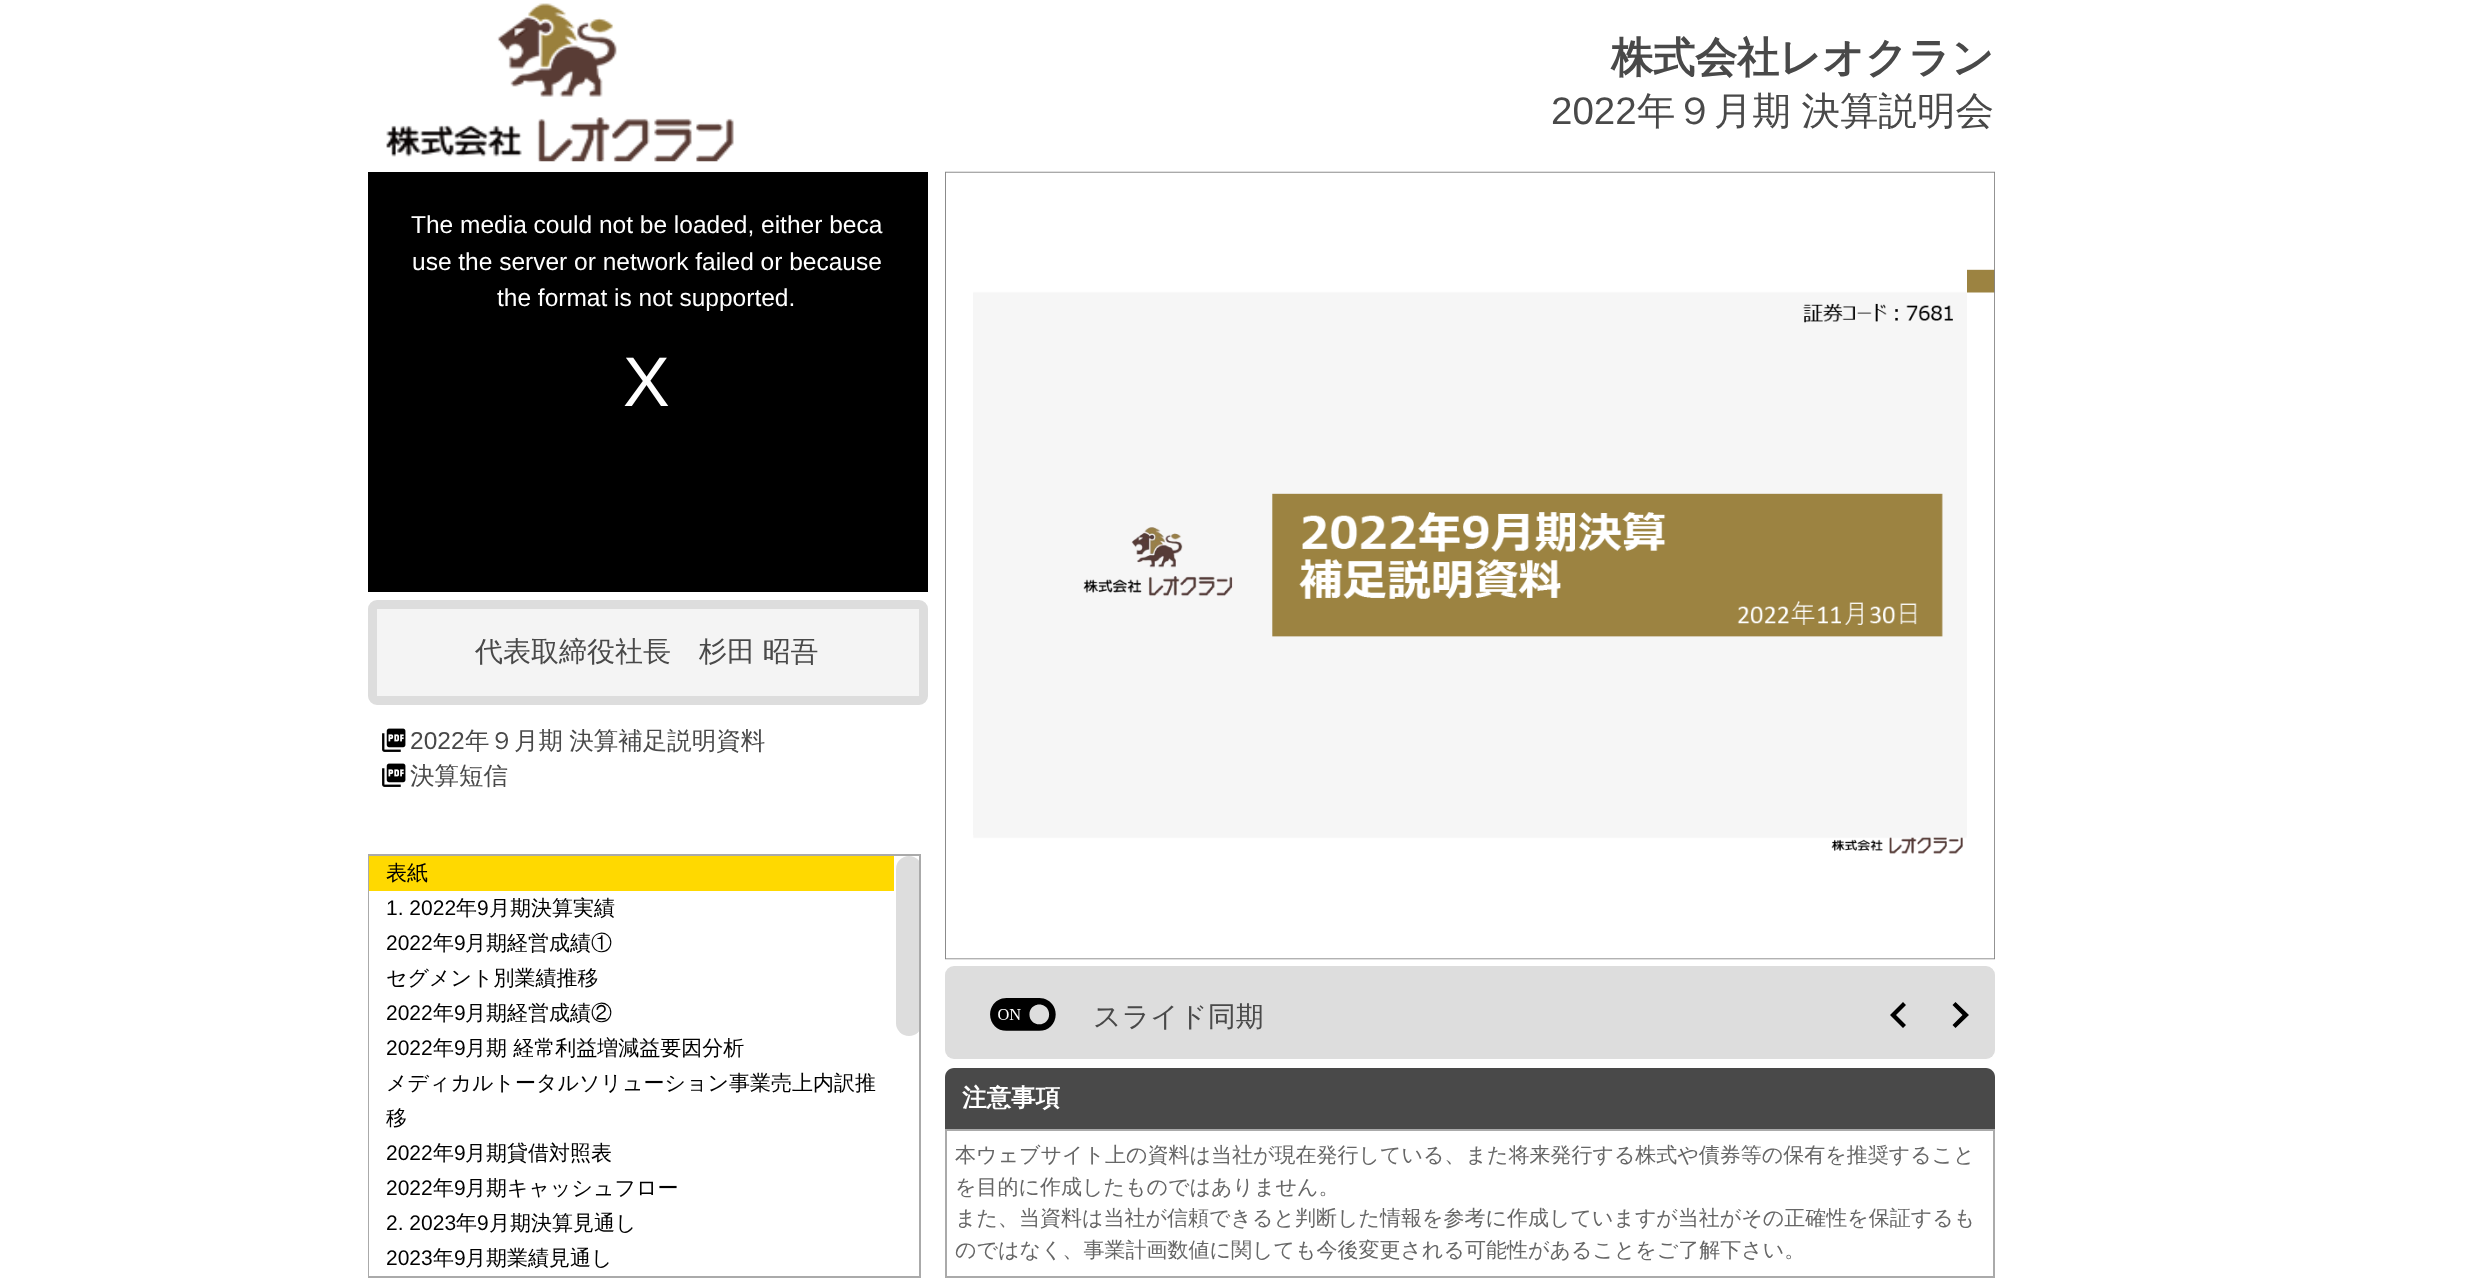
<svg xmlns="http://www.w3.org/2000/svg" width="2465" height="1279">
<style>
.a{font:bold 42px WenQuanYi Zen Hei;fill:#494949}
.b{font:38.5px Liberation Sans;fill:#494949}
.c{font:500 38.5px WenQuanYi Zen Hei;fill:#494949}
.d{font:24.5px Liberation Sans;fill:#fff}
.e{font:70px Liberation Sans;fill:#fff}
.f{font:500 28px WenQuanYi Zen Hei;fill:#494949}
.g{font:24.5px Liberation Sans;fill:#494949}
.h{font:500 24.5px WenQuanYi Zen Hei;fill:#494949}
.i{font:500 21px WenQuanYi Zen Hei;fill:#000}
.j{font:21px Liberation Sans;fill:#000}
.k{font:bold 24.5px WenQuanYi Zen Hei;fill:#fff}
.l{font:500 21px WenQuanYi Zen Hei;fill:#666}
</style>
<defs>
<clipPath id="clip1"><path d="M369 856h550v420H369z"/></clipPath>
</defs>
<rect width="100%" height="100%" fill="#fff"/>
<image href="1.png" x="386" y="3" width="348" height="159"/>
<path fill="#000" d="M368 172h560v420H368z"/>
<rect fill="#f4f4f4" stroke="#ddd" stroke-width="9" x="372.5" y="604.5" width="551" height="96" rx="4.5"/>
<image href="2.png" x="382" y="728" width="24" height="24"/>
<image href="2.png" x="382" y="763" width="24" height="24"/>
<path fill="none" stroke="#aaa" stroke-width="2" d="M369 855h551v422H369z"/>
<path fill="#ffd900" d="M369 856h525v35H369z"/>
<path fill="#fff" d="M369 891h1v385H369z"/>
<g clip-path="url(#clip1)">
<rect fill="#ddd" x="896" y="856" width="26" height="180" rx="13"/>
</g>
<image href="3.png" x="945" y="171" width="1050" height="789"/>
<rect fill="#ddd" x="945" y="966" width="1050" height="93" rx="9"/>
<image href="4.png" x="990" y="998" width="66" height="33"/>
<path fill="#000" d="M1906 1005l-3-3l-13 13l13 13l3-3l-10-10z"/>
<path fill="#000" d="M1955.5 1002l-3 3l10 10l-10 10l3 3l13.5-13z"/>
<path fill="#494949" d="M954 1068h1032c5 0 9 4 9 9v52h-1050v-52c0-5 4-9 9-9z"/>
<path fill="none" stroke="#aaa" stroke-width="2" d="M946 1130h1048v147H946z"/>
<text class="a" x="1611" y="72">株式会社レオクラン</text>
<text class="b" x="1551" y="124">2022</text>
<text class="c" x="1637" y="124" word-spacing="-1">年９月期 決算説明会</text>
<text class="d" x="411" y="233">The media could not be loaded, either beca</text>
<text class="d" x="412" y="270">use the server or network failed or because</text>
<text class="d" x="497" y="306">the format is not supported.</text>
<text class="e" x="623" y="406">X</text>
<text class="f" x="475" y="661" word-spacing="-1">代表取締役社長　杉田 昭吾</text>
<text class="g" x="410" y="749">2022</text>
<text class="h" x="465" y="749" word-spacing="-1">年９月期 決算補足説明資料</text>
<text class="h" x="410" y="784">決算短信</text>
<text class="i" x="386" y="880">表紙</text>
<text class="j" x="386" y="915">1. 2022</text>
<text class="i" x="456" y="915">年</text>
<text class="j" x="477" y="915">9</text>
<text class="i" x="489" y="915">月期決算実績</text>
<text class="j" x="386" y="950">2022</text>
<text class="i" x="433" y="950">年</text>
<text class="j" x="454" y="950">9</text>
<text class="i" x="465" y="950">月期経営成績①</text>
<text class="i" x="386" y="985">セグメント別業績推移</text>
<text class="j" x="386" y="1020">2022</text>
<text class="i" x="433" y="1020">年</text>
<text class="j" x="454" y="1020">9</text>
<text class="i" x="465" y="1020">月期経営成績②</text>
<text class="j" x="386" y="1055">2022</text>
<text class="i" x="433" y="1055">年</text>
<text class="j" x="454" y="1055">9</text>
<text class="i" x="465" y="1055">月期 経常利益増減益要因分析</text>
<text class="i" x="386" y="1090">メディカルトータルソリューション事業売上内訳推</text>
<text class="i" x="386" y="1125">移</text>
<text class="j" x="386" y="1160">2022</text>
<text class="i" x="433" y="1160">年</text>
<text class="j" x="454" y="1160">9</text>
<text class="i" x="465" y="1160">月期貸借対照表</text>
<text class="j" x="386" y="1195">2022</text>
<text class="i" x="433" y="1195">年</text>
<text class="j" x="454" y="1195">9</text>
<text class="i" x="465" y="1195">月期キャッシュフロー</text>
<text class="j" x="386" y="1230">2. 2023</text>
<text class="i" x="456" y="1230">年</text>
<text class="j" x="477" y="1230">9</text>
<text class="i" x="489" y="1230">月期決算見通し</text>
<text class="j" x="386" y="1265">2023</text>
<text class="i" x="433" y="1265">年</text>
<text class="j" x="454" y="1265">9</text>
<text class="i" x="465" y="1265">月期業績見通し</text>
<text class="f" x="1093" y="1026">スライド同期</text>
<text class="k" x="962" y="1106">注意事項</text>
<text class="l" x="955" y="1162">本ウェブサイト上の資料は当社が現在発行している、また将来発行する株式や債券等の保有を推奨すること</text>
<text class="l" x="955" y="1194">を目的に作成したものではありません。</text>
<text class="l" x="955" y="1225">また、当資料は当社が信頼できると判断した情報を参考に作成していますが当社がその正確性を保証するも</text>
<text class="l" x="955" y="1257">のではなく、事業計画数値に関しても今後変更される可能性があることをご了解下さい。</text>
</svg>
